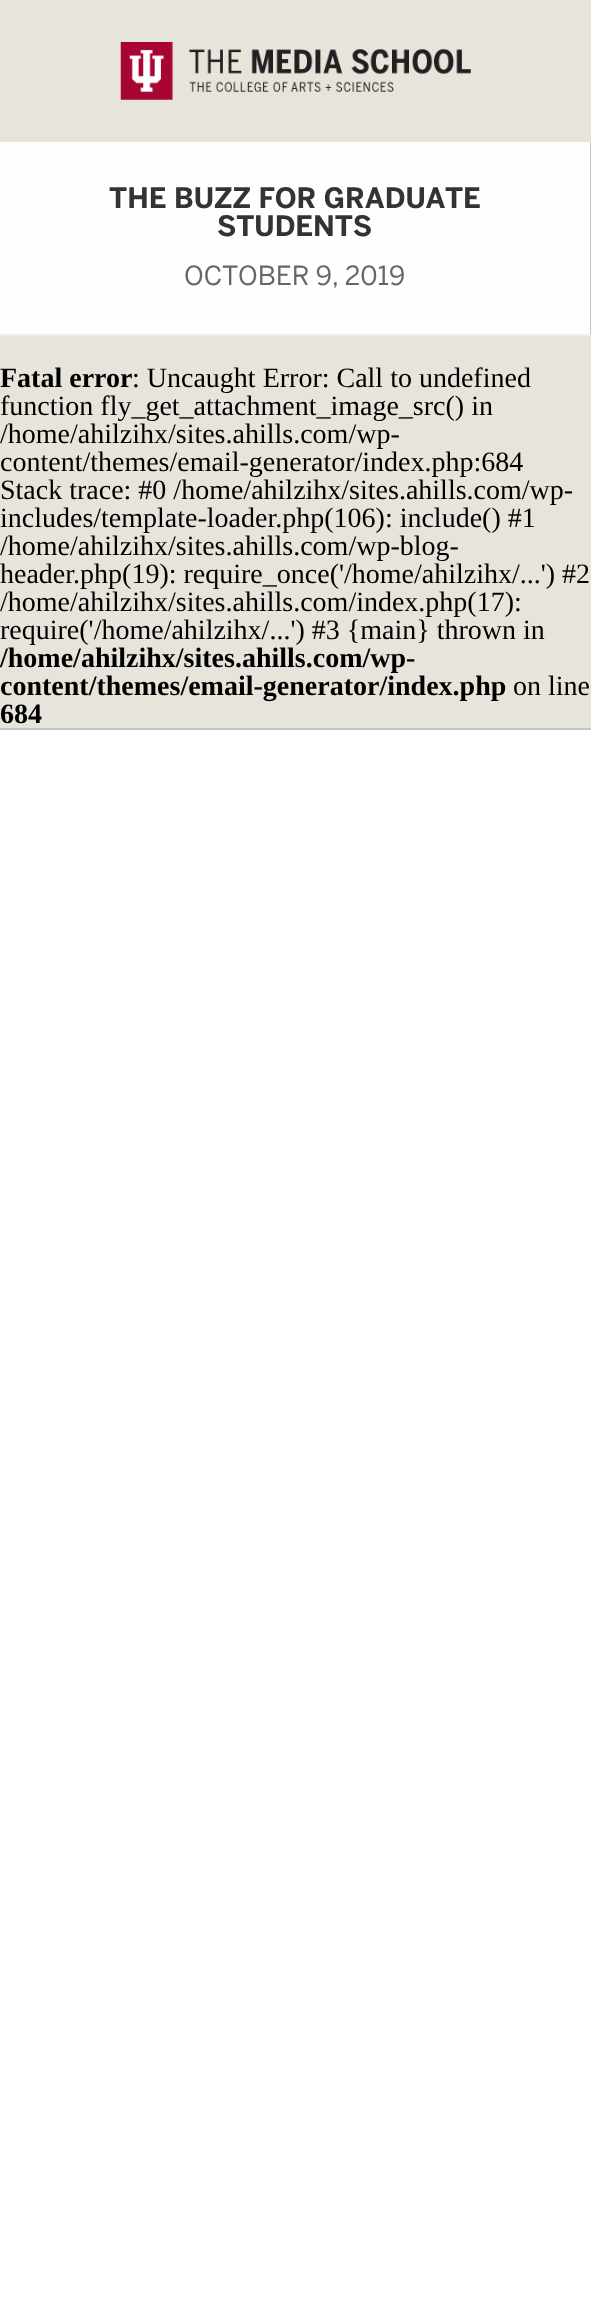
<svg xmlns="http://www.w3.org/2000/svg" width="591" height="2300">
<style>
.a{font:bold 28px 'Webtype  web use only';fill:#333}
.b{font:26.25px 'Webtype  web use only';fill:#666}
.c{font:bold 28px Liberation Serif;fill:#000}
.d{font:28px Liberation Serif;fill:#000}
</style>
<rect width="100%" height="100%" fill="#fff"/>
<path fill="#e7e4db" d="M0 0h591v728H0z"/>
<image href="1.png" x="120" y="42" width="351" height="58"/>
<path fill="#c4c4c4" d="M0 728h591v2H0z"/>
<path fill="#fefefe" d="M0 142h590v192H0z"/>
<path fill="#c4c4c4" d="M590 142h1v194H590z"/>
<path fill="#eee" d="M0 334h591v2H0z"/>
<text class="a" x="109" y="208">THE BUZZ FOR GRADUATE</text>
<text class="a" x="217" y="236">STUDENTS</text>
<text class="b" x="184" y="285">OCTOBER 9, 2019</text>
<text class="c" x="0" y="387">Fatal error</text>
<text class="d" x="132" y="387">: Uncaught Error: Call to undefined</text>
<text class="d" x="0" y="415">function fly_get_attachment_image_src() in</text>
<text class="d" x="0" y="443">/home/ahilzihx/sites.ahills.com/wp-</text>
<text class="d" x="0" y="471">content/themes/email-generator/index.php:684</text>
<text class="d" x="0" y="499">Stack trace: #0 /home/ahilzihx/sites.ahills.com/wp-</text>
<text class="d" x="0" y="527">includes/template-loader.php(106): include() #1</text>
<text class="d" x="0" y="555">/home/ahilzihx/sites.ahills.com/wp-blog-</text>
<text class="d" x="0" y="583">header.php(19): require_once('/home/ahilzihx/...') #2</text>
<text class="d" x="0" y="611">/home/ahilzihx/sites.ahills.com/index.php(17):</text>
<text class="d" x="0" y="639">require('/home/ahilzihx/...') #3 {main} thrown in</text>
<text class="c" x="0" y="667">/home/ahilzihx/sites.ahills.com/wp-</text>
<text class="c" x="0" y="695">content/themes/email-generator/index.php</text>
<text class="d" x="513" y="695">on line</text>
<text class="c" x="0" y="723">684</text>
</svg>
